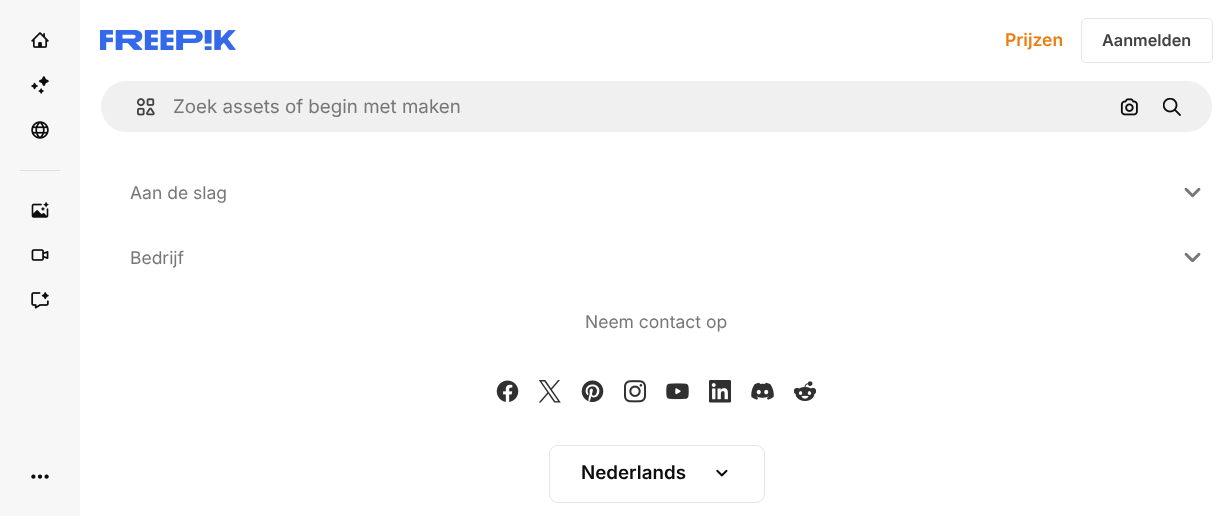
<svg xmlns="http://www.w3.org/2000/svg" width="1232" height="516">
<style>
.a{font:600 17.5px Inter;fill:#ea7e11}
.b{font:600 16.25px Inter;fill:#424242}
.c{font:18.75px Inter;fill:#777}
.d{font:17.5px Inter;fill:#777}
.e{font:600 18.75px Inter;fill:#0d0d0d}
</style>
<rect width="100%" height="100%" fill="#fff"/>
<path fill="#f7f7f7" d="M0 0h80v516H0z"/>
<image href="1.png" x="31" y="32" width="18" height="16"/>
<image href="2.png" x="31" y="76" width="18" height="18"/>
<image href="3.png" x="31" y="121" width="18" height="18"/>
<path fill="#e0e0e0" d="M20 170h40v1H20z"/>
<image href="4.png" x="31" y="202" width="18" height="16"/>
<image href="5.png" x="31" y="249" width="18" height="12"/>
<image href="6.png" x="31" y="292" width="18" height="17"/>
<image href="7.png" x="31" y="474" width="18" height="5"/>
<image href="8.png" x="100" y="30" width="136" height="20"/>
<rect fill="none" stroke="#e7e7e7" x="1081.5" y="18.5" width="131" height="44" rx="4.5"/>
<rect fill="#f0f0f0" stroke="#fff" x="100.5" y="80.5" width="1112" height="52" rx="26"/>
<image href="9.png" x="136" y="98" width="19" height="18"/>
<image href="10.png" x="1120" y="98" width="18" height="18"/>
<image href="11.png" x="1163" y="98" width="18" height="18"/>
<image href="12.png" x="1184" y="187" width="17" height="11"/>
<image href="12.png" x="1184" y="252" width="17" height="11"/>
<image href="13.png" x="496" y="380" width="23" height="22"/>
<image href="14.png" x="539" y="380" width="22" height="23"/>
<image href="15.png" x="581" y="380" width="23" height="22"/>
<image href="16.png" x="624" y="380" width="22" height="23"/>
<image href="17.png" x="666" y="383" width="23" height="17"/>
<image href="18.png" x="709" y="380" width="22" height="23"/>
<image href="19.png" x="751" y="382" width="23" height="18"/>
<image href="20.png" x="794" y="381" width="22" height="20"/>
<rect fill="none" stroke="#e6e6e6" x="549.5" y="445.5" width="215" height="57" rx="8.5"/>
<image href="21.png" x="716" y="469" width="12" height="8"/>
<text class="a" x="1005" y="46">Prijzen</text>
<text class="b" x="1102" y="46">Aanmelden</text>
<text class="c" x="173" y="113">Zoek assets of begin met maken</text>
<text class="d" x="130" y="199">Aan de slag</text>
<text class="d" x="130" y="264">Bedrijf</text>
<text class="d" x="585" y="328">Neem contact op</text>
<text class="e" x="581" y="479">Nederlands</text>
</svg>
